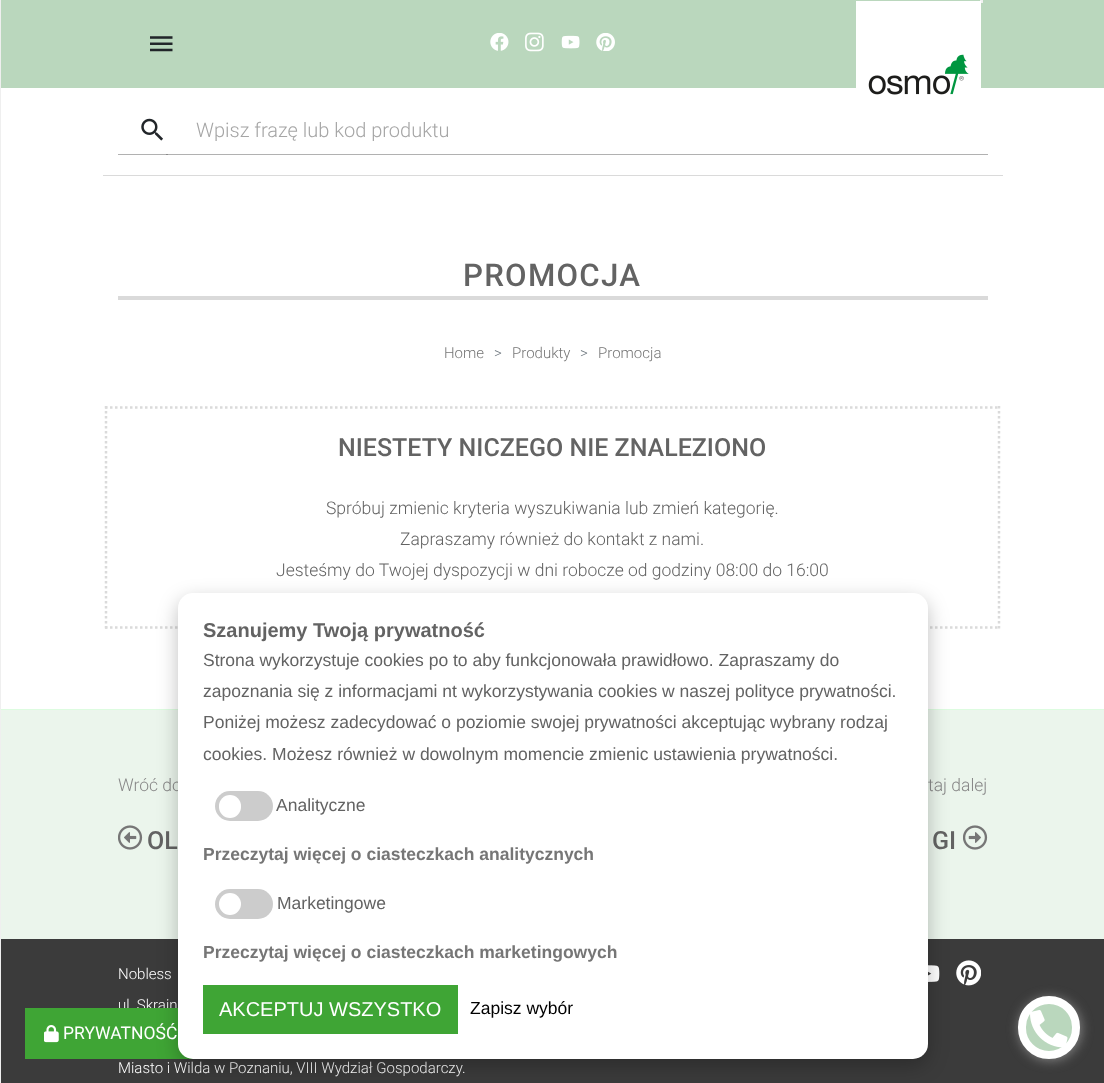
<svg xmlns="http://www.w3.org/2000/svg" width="1104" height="1083">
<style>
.a{font:300 20px Roboto;fill:#a5a5a5}
.b{font:500 31.25px Roboto;letter-spacing:1.25px;fill:#636363}
.c{font:300 15px Roboto;fill:#767676}
.d{font:300 15px Roboto;fill:#6c757d}
.e{font:500 25px Roboto;fill:#636363}
.f{font:300 17.5px Roboto;fill:#636363}
.g{font:300 17.5px Roboto;fill:#888}
.h{font:300 15px Roboto;fill:#fff}
.i{font:17.5px Liberation Sans;fill:#000}
.j{font:20px Liberation Sans;fill:#fff}
.k{font:bold 17.5px Liberation Sans;fill:#767676}
.l{font:17.5px Liberation Sans;fill:#636363}
.m{font:bold 20px Liberation Sans;fill:#636363}
.n{font:17.5px Roboto;fill:#fff}
</style>
<rect width="100%" height="100%" fill="#fff"/>
<path fill="#b1b1b1" d="M118 154h870v1H118z"/>
<path fill="#ddfce0" d="M0 709h1104v1H0z"/>
<path fill="#efefef" d="M0 0h1v1083H0z"/>
<path fill="#bad7bd" d="M1 0h1103v88H1z"/>
<image href="1.png" x="150" y="36" width="23" height="16"/>
<path fill="#f1f1f1" d="M980 0h3v3H980z"/>
<image href="2.png" x="856" y="1" width="125" height="94"/>
<image href="3.png" x="490" y="33" width="19" height="18"/>
<image href="4.png" x="525" y="32" width="19" height="20"/>
<image href="5.png" x="561" y="35" width="19" height="14"/>
<image href="6.png" x="596" y="33" width="19" height="18"/>
<path fill="#dadada" d="M103 175h900v1H103z"/>
<path fill="#8a8a8a" d="M166 154h2v1H166z"/>
<image href="7.png" x="141" y="118" width="22" height="23"/>
<path fill="#dadada" d="M118 296h870v4H118z"/>
<path fill="none" stroke="#dadada" stroke-width="2.5" stroke-dasharray="2.5 2.5" d="M105 407.5h895"/>
<path fill="none" stroke="#dadada" stroke-width="2.5" stroke-dasharray="2.5 2.5" d="M999 406v223"/>
<path fill="none" stroke="#dadada" stroke-width="2.5" stroke-dasharray="2.5 2.5" d="M105 627.5h895"/>
<path fill="none" stroke="#dadada" stroke-width="2.5" stroke-dasharray="2.5 2.5" d="M106 406v223"/>
<path fill="#ebf5ec" d="M1 710h1103v229H1z"/>
<image href="8.png" x="118" y="825" width="25" height="25"/>
<image href="9.png" x="963" y="825" width="25" height="25"/>
<path fill="#3b3b3b" d="M1 939h1103v144H1z"/>
<image href="10.png" x="928" y="965" width="12" height="17"/>
<image href="11.png" x="956" y="960" width="25" height="26"/>
<rect fill="#888" filter="blur(6px)" x="1019" y="998" width="62" height="62" rx="31"/>
<rect fill="#bad7bd" stroke="#fff" stroke-width="8" x="1022" y="1000" width="54" height="55" rx="27"/>
<image href="12.png" x="1030" y="1010" width="38" height="38"/>
<text class="a" x="196" y="137">Wpisz frazę lub kod produktu</text>
<text class="b" x="463" y="286">PROMOCJA</text>
<text class="c" x="444" y="358">Home</text>
<text class="d" x="494" y="358">&gt;</text>
<text class="c" x="512" y="358">Produkty</text>
<text class="d" x="580" y="358">&gt;</text>
<text class="c" x="598" y="358">Promocja</text>
<text class="e" x="338" y="456">NIESTETY NICZEGO NIE ZNALEZIONO</text>
<text class="f" x="326" y="514">Spróbuj zmienic kryteria wyszukiwania lub zmień kategorię.</text>
<text class="f" x="400" y="545">Zapraszamy również do kontakt z nami.</text>
<text class="f" x="276" y="576">Jesteśmy do Twojej dyspozycji w dni robocze od godziny 08:00 do 16:00</text>
<text class="g" x="118" y="791">Wróć do</text>
<text class="e" x="147" y="849">OL</text>
<text class="g" x="928" y="791">taj dalej</text>
<text class="e" x="932" y="849">GI</text>
<text class="h" x="118" y="979">Nobless</text>
<text class="h" x="118" y="1010">ul. Skrajn</text>
<text class="h" x="118" y="1073">Miasto i Wilda w Poznaniu, VIII Wydział Gospodarczy.</text>
<path fill="#3fa535" d="M25 1008h168v51H25z"/>
<rect fill="#00000040" filter="blur(10px)" x="178" y="600" width="750" height="466" rx="15"/>
<rect fill="#fff" x="178" y="593" width="750" height="466" rx="15"/>
<rect fill="#ccc" x="215" y="889" width="58" height="30" rx="15"/>
<circle fill="#fff" cx="230" cy="904" r="11"/>
<rect fill="#ccc" x="215" y="791" width="58" height="30" rx="15"/>
<rect fill="#fff" x="219" y="795" width="22" height="23" rx="11"/>
<text class="i" x="470" y="1014">Zapisz wybór</text>
<path fill="#3fa535" d="M203 985h255v49H203z"/>
<text class="j" x="219" y="1016">AKCEPTUJ WSZYSTKO</text>
<text class="k" x="203" y="958">Przeczytaj więcej o ciasteczkach marketingowych</text>
<text class="l" x="277" y="909">Marketingowe</text>
<text class="k" x="203" y="860">Przeczytaj więcej o ciasteczkach analitycznych</text>
<text class="l" x="276" y="811">Analityczne</text>
<text class="l" x="203" y="760">cookies. Możesz również w dowolnym momencie zmienic ustawienia prywatności.</text>
<text class="l" x="203" y="728">Poniżej możesz zadecydować o poziomie swojej prywatności akceptując wybrany rodzaj</text>
<text class="l" x="203" y="697">zapoznania się z informacjami nt wykorzystywania cookies w naszej polityce prywatności.</text>
<text class="l" x="203" y="666">Strona wykorzystuje cookies po to aby funkcjonowała prawidłowo. Zapraszamy do</text>
<text class="m" x="203" y="637">Szanujemy Twoją prywatność</text>
<image href="13.png" x="44" y="1025" width="15" height="18"/>
<text class="n" x="63" y="1039">PRYWATNOŚĆ</text>
</svg>
